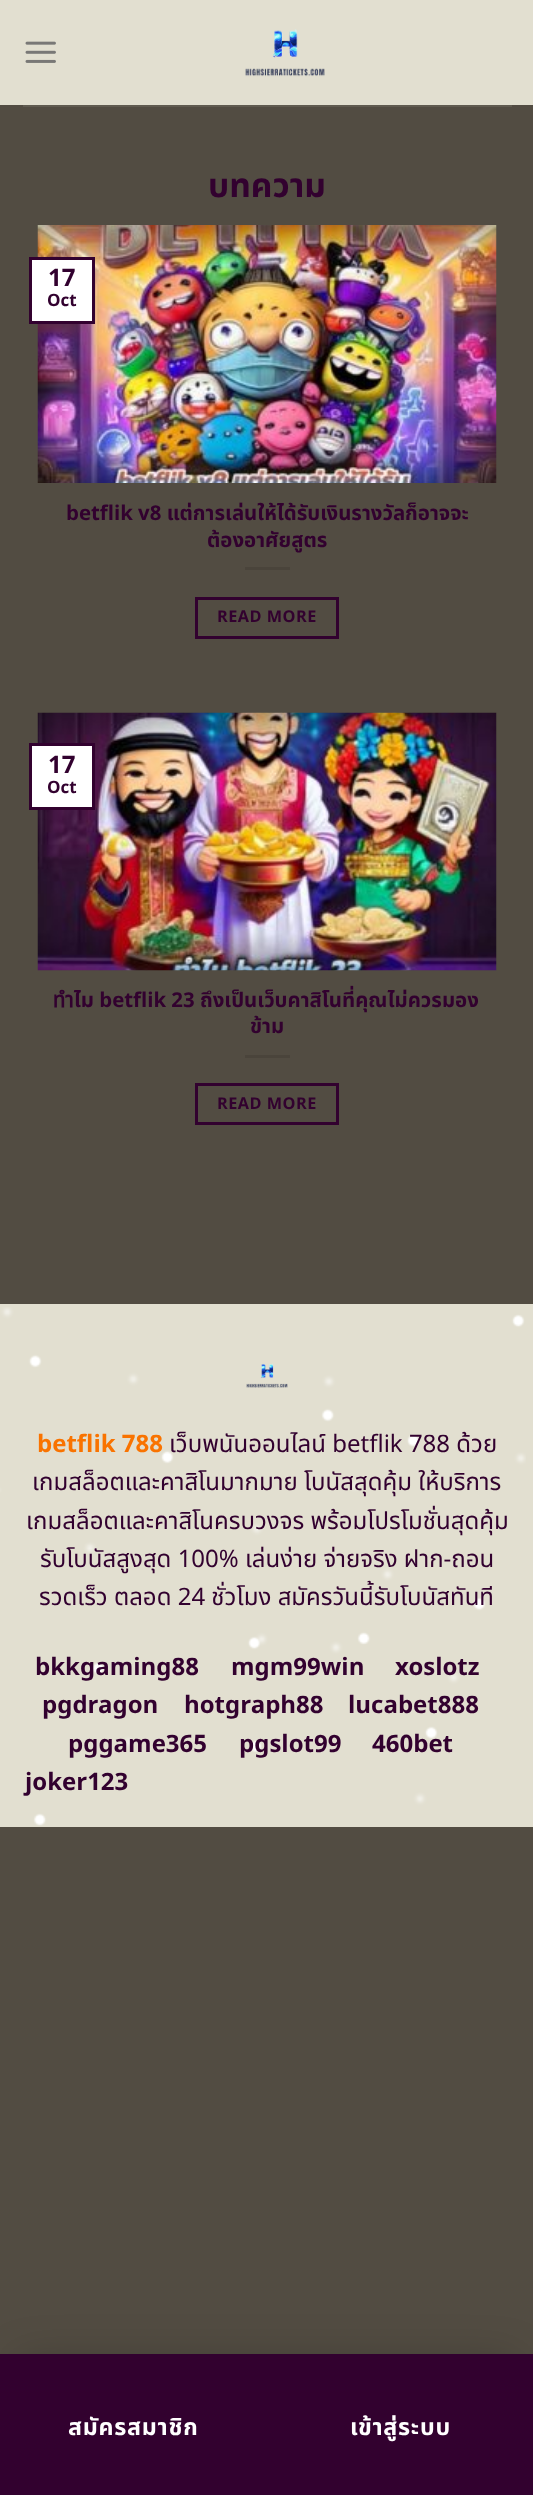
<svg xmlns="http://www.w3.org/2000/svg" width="533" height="2495">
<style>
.a{font:bold 33.5px Noto Sans Thai;fill:#32012f}
.b{font:bold 24px Noto Sans Thai;fill:#32012f}
.c{font:bold 17px Noto Sans Thai;fill:#32012f}
.d{font:bold 20.4px Noto Sans Thai;fill:#32012f}
.e{font:bold 16.25px Noto Sans Thai;letter-spacing:0.5px;fill:#32012f}
.f{font:bold 24px Noto Sans Thai;fill:#f97300}
.g{font:24px Noto Sans Thai;fill:#32012f}
.h{font:bold 23.25px Noto Sans Thai;letter-spacing:0.75px;fill:#fff}
</style>
<rect width="100%" height="100%" fill="#524c42"/>
<path fill="#e2dfd0" d="M0 0h533v105H0z"/>
<image href="1.png" x="25" y="41" width="31" height="22"/>
<image href="2.png" x="245" y="29" width="80" height="48"/>
<path fill="#605b50" d="M23 105h489v2H23z"/>
<image href="3.png" x="37" y="225" width="460" height="258"/>
<path fill="#fff" stroke="#32012f" stroke-width="3" d="M30.5 258.5h63v64H30.5z"/>
<path fill="#4a443b" d="M245 567h45v3H245z"/>
<path fill="none" stroke="#32012f" stroke-width="3" d="M196.5 598.5h141v39H196.5z"/>
<image href="4.png" x="37" y="712" width="460" height="259"/>
<path fill="#fff" stroke="#32012f" stroke-width="3" d="M30.5 744.5h63v64H30.5z"/>
<path fill="#4a443b" d="M245 1055h45v3H245z"/>
<path fill="none" stroke="#32012f" stroke-width="3" d="M196.5 1084.5h141v39H196.5z"/>
<path fill="#e2dfd0" d="M0 1304h533v523H0z"/>
<image href="5.png" x="0" y="1307" width="526" height="519"/>
<image href="6.png" x="246" y="1363" width="42" height="25"/>
<path fill="#00000033" filter="blur(22px)" d="M18 2360h498v106H18z"/>
<path fill="#32012f" d="M0 2354h533v141H0z"/>
<text class="a" x="208" y="197">บทความ</text>
<text class="b" x="48" y="286">17</text>
<text class="c" x="47" y="306">Oct</text>
<text class="d" x="66" y="520">betflik v8 แต่การเล่นให้ได้รับเงินรางวัลก็อาจจะ</text>
<text class="d" x="207" y="547">ต้องอาศัยสูตร</text>
<text class="e" x="217" y="622">READ MORE</text>
<text class="b" x="48" y="773">17</text>
<text class="c" x="47" y="793">Oct</text>
<text class="d" x="53" y="1007">ทำไม betflik 23 ถึงเป็นเว็บคาสิโนที่คุณไม่ควรมอง</text>
<text class="d" x="250" y="1033">ข้าม</text>
<text class="e" x="217" y="1109">READ MORE</text>
<text class="f" x="37" y="1452">betflik 788</text>
<text class="g" x="169" y="1452">เว็บพนันออนไลน์ betflik 788 ด้วย</text>
<text class="g" x="32" y="1490">เกมสล็อตและคาสิโนมากมาย โบนัสสุดคุ้ม ให้บริการ</text>
<text class="g" x="26" y="1529">เกมสล็อตและคาสิโนครบวงจร พร้อมโปรโมชั่นสุดคุ้ม</text>
<text class="g" x="40" y="1567">รับโบนัสสูงสุด 100% เล่นง่าย จ่ายจริง ฝาก-ถอน</text>
<text class="g" x="39" y="1605">รวดเร็ว ตลอด 24 ชั่วโมง สมัครวันนี้รับโบนัสทันที</text>
<text class="b" x="35" y="1675">bkkgaming88</text>
<text class="b" x="231" y="1675">mgm99win</text>
<text class="b" x="395" y="1675">xoslotz</text>
<text class="b" x="42" y="1713">pgdragon</text>
<text class="b" x="184" y="1713">hotgraph88</text>
<text class="b" x="348" y="1713">lucabet888</text>
<text class="b" x="68" y="1752">pggame365</text>
<text class="b" x="239" y="1752">pgslot99</text>
<text class="b" x="372" y="1752">460bet</text>
<text class="b" x="25" y="1790">joker123</text>
<text class="h" x="68" y="2435">สมัครสมาชิก</text>
<text class="h" x="350" y="2435">เข้าสู่ระบบ</text>
</svg>
